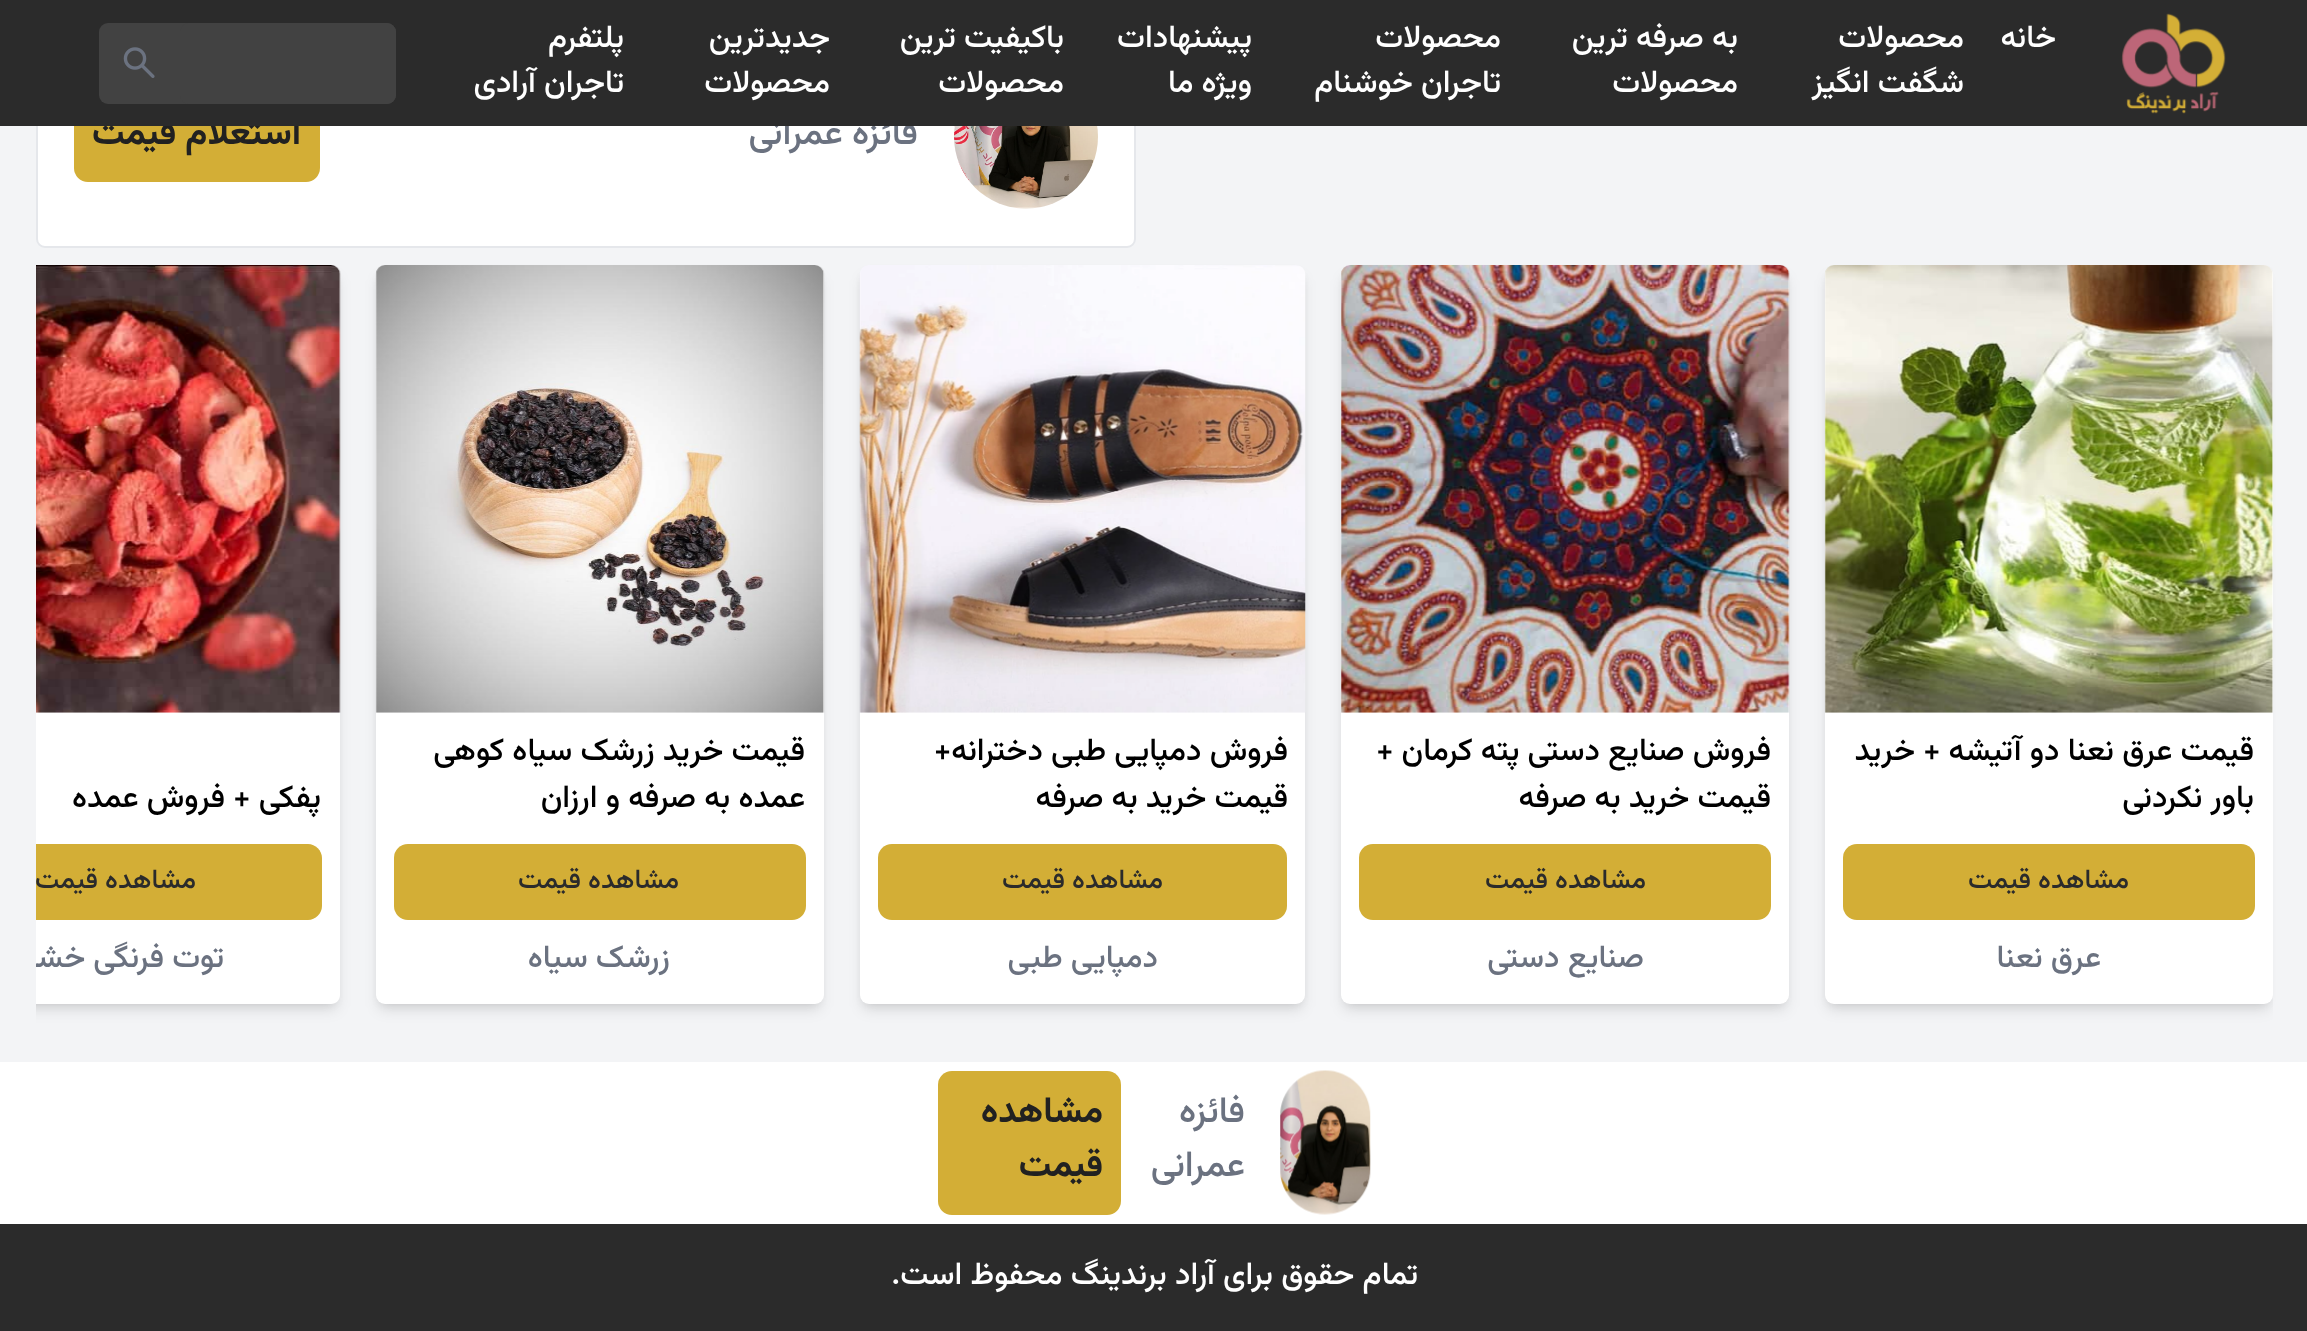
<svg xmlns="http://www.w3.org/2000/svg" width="2307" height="1331">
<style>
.a{font:500 36px Vazirmatn;direction:rtl;fill:#6b7280}
.b{font:bold 36px Vazirmatn;direction:rtl;fill:#212121}
.c{font:500 31.5px Vazirmatn;direction:rtl;fill:#fff}
.d{font:500 31.5px Vazirmatn;direction:rtl;fill:#000}
.e{font:500 27px Vazirmatn;direction:rtl;fill:#2b2b2b}
.f{font:500 31.5px Vazirmatn;direction:rtl;fill:#6b7280}
</style>
<defs>
<clipPath id="clip1"><path d="M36 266h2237v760H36z"/></clipPath>
<clipPath id="clip2"><path d="M36 266h2237v760H36z"/></clipPath>
</defs>
<rect width="100%" height="100%" fill="#fff"/>
<path fill="#f3f4f6" d="M0 126h2307v936H0z"/>
<rect fill="#fff" stroke="#e5e7eb" stroke-width="2" x="37" y="-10" width="1098" height="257" rx="8"/>
<image href="3.png" x="954" y="126" width="144" height="83"/>
<rect fill="#d3ae36" x="74" y="92" width="246" height="90" rx="14"/>
<rect fill="#0000001a" filter="blur(4.5px)" x="1829" y="275" width="439" height="729" rx="5"/>
<g clip-path="url(#clip1)">
<rect fill="#0000001a" filter="blur(7px)" x="1827" y="277" width="443" height="733" rx="7"/>
</g>
<rect fill="#fff" x="1825" y="266" width="448" height="738" rx="9"/>
<image href="4.png" x="1824" y="265" width="449" height="448"/>
<rect fill="#d3ae36" x="1843" y="844" width="412" height="76" rx="14"/>
<rect fill="#0000001a" filter="blur(4.5px)" x="1346" y="275" width="438" height="729" rx="5"/>
<rect fill="#0000001a" filter="blur(7px)" x="1343" y="277" width="444" height="733" rx="7"/>
<rect fill="#fff" x="1341" y="266" width="448" height="738" rx="9"/>
<image href="5.png" x="1341" y="265" width="449" height="448"/>
<rect fill="#d3ae36" x="1359" y="844" width="412" height="76" rx="14"/>
<rect fill="#0000001a" filter="blur(4.5px)" x="864" y="275" width="437" height="729" rx="5"/>
<rect fill="#0000001a" filter="blur(7px)" x="862" y="277" width="441" height="733" rx="7"/>
<rect fill="#fff" x="860" y="266" width="445" height="738" rx="9"/>
<image href="6.png" x="859" y="265" width="447" height="448"/>
<rect fill="#d3ae36" x="878" y="844" width="409" height="76" rx="14"/>
<rect fill="#0000001a" filter="blur(4.5px)" x="380" y="275" width="439" height="729" rx="5"/>
<rect fill="#0000001a" filter="blur(7px)" x="378" y="277" width="443" height="733" rx="7"/>
<rect fill="#fff" x="376" y="266" width="448" height="738" rx="9"/>
<image href="7.png" x="375" y="265" width="450" height="448"/>
<rect fill="#d3ae36" x="394" y="844" width="412" height="76" rx="14"/>
<g clip-path="url(#clip1)">
<rect fill="#0000001a" filter="blur(4.5px)" x="-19" y="275" width="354" height="729" rx="5"/>
<rect fill="#0000001a" filter="blur(7px)" x="-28" y="277" width="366" height="733" rx="7"/>
</g>
<path fill="#fff" d="M36 266h295c5 0 9 4 9 9v720c0 5-4 9-9 9h-295z"/>
<image href="8.png" x="36" y="265" width="305" height="448"/>
<path fill="#d3ae36" d="M36 844h272c7.5 0 14 6.5 14 14v48c0 7.5-6.5 14-14 14h-272z"/>
<image href="9.png" x="1280" y="1070" width="91" height="145"/>
<rect fill="#d3ae36" x="938" y="1071" width="183" height="144" rx="14"/>
<path fill="#2b2b2b" d="M0 1224h2307v107H0z"/>
<text class="a" x="918" y="144">فائزه عمرانی</text>
<text class="b" x="301" y="144">استعلام قیمت</text>
<path fill="#2b2b2b" d="M0 0h2307v126H0z"/>
<rect fill="#424242" x="99" y="23" width="297" height="81" rx="9"/>
<image href="2.png" x="123" y="47" width="32" height="31"/>
<rect fill="#424242" x="180" y="23" width="216" height="81" rx="9"/>
<text class="c" x="624" y="92">تاجران آرادی</text>
<text class="c" x="624" y="47">پلتفرم</text>
<text class="c" x="830" y="92">محصولات</text>
<text class="c" x="830" y="47">جدیدترین</text>
<text class="c" x="1064" y="92">محصولات</text>
<text class="c" x="1064" y="47">باکیفیت ترین</text>
<text class="c" x="1252" y="92">ویژه ما</text>
<text class="c" x="1252" y="47">پیشنهادات</text>
<text class="c" x="1501" y="92">تاجران خوشنام</text>
<text class="c" x="1501" y="47">محصولات</text>
<text class="c" x="1738" y="92">محصولات</text>
<text class="c" x="1738" y="47">به صرفه ترین</text>
<text class="c" x="1964" y="92">شگفت انگیز</text>
<text class="c" x="1964" y="47">محصولات</text>
<text class="c" x="2056" y="47">خانه</text>
<image href="1.png" x="2121" y="13" width="105" height="101"/>
<text class="d" x="2254" y="760">قیمت عرق نعنا دو آتیشه + خرید</text>
<text class="d" x="2254" y="807">باور نکردنی</text>
<text class="e" x="2129" y="888">مشاهده قیمت</text>
<text class="f" x="2101" y="967">عرق نعنا</text>
<text class="d" x="1771" y="760">فروش صنایع دستی پته کرمان +</text>
<text class="d" x="1771" y="807">قیمت خرید به صرفه</text>
<text class="e" x="1646" y="888">مشاهده قیمت</text>
<text class="f" x="1644" y="967">صنایع دستی</text>
<text class="d" x="1288" y="760">فروش دمپایی طبی دخترانه+</text>
<text class="d" x="1288" y="807">قیمت خرید به صرفه</text>
<text class="e" x="1163" y="888">مشاهده قیمت</text>
<text class="f" x="1158" y="967">دمپایی طبی</text>
<text class="d" x="805" y="760">قیمت خرید زرشک سیاه کوهی</text>
<text class="d" x="805" y="807">عمده به صرفه و ارزان</text>
<text class="e" x="679" y="888">مشاهده قیمت</text>
<text class="f" x="670" y="967">زرشک سیاه</text>
<text class="d" x="321" y="807">پفکی + فروش عمده</text>
<text class="e" x="196" y="888">مشاهده قیمت</text>
<g clip-path="url(#clip2)">
<text class="f" x="224" y="967">توت فرنگی خشک</text>
</g>
<text class="a" x="1245" y="1122">فائزه</text>
<text class="a" x="1245" y="1176">عمرانی</text>
<text class="b" x="1103" y="1122">مشاهده</text>
<text class="b" x="1103" y="1176">قیمت</text>
<text class="c" x="1418" y="1284">تمام حقوق برای آراد برندینگ محفوظ است.</text>
</svg>
